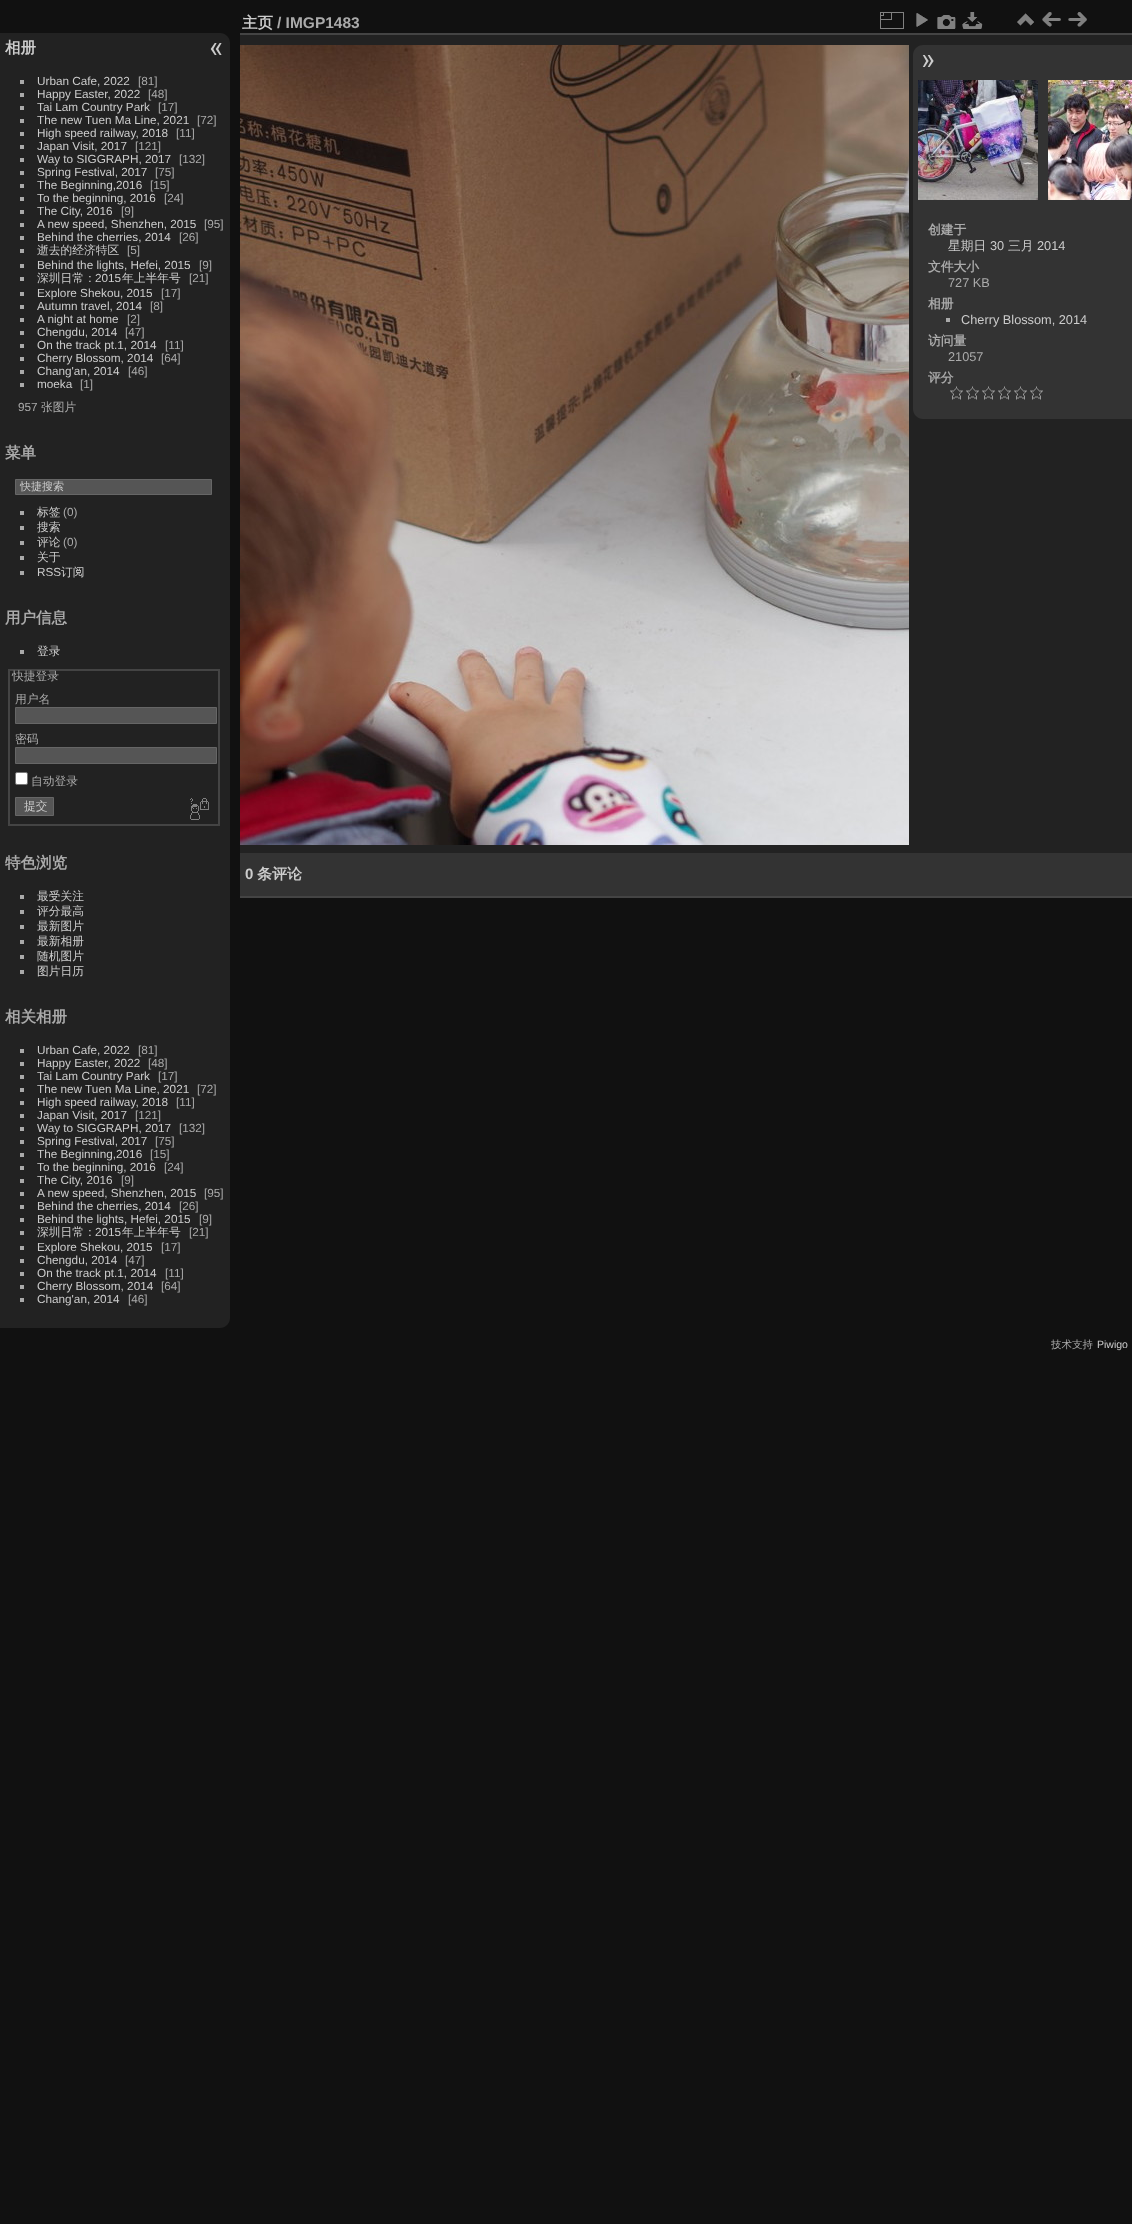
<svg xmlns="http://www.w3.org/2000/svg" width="1132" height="2224">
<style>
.a{font:bold 15.5px WenQuanYi Zen Hei;fill:#ccc}
.b{font:11.75px Liberation Sans;fill:#ccc}
.c{font:11.75px Liberation Sans;fill:#aaa}
.d{font:500 11.75px WenQuanYi Zen Hei;fill:#ccc}
.e{font:500 11.75px WenQuanYi Zen Hei;fill:#aaa}
.f{font:bold 15.5px WenQuanYi Zen Hei;fill:#aaa}
.g{font:500 11px WenQuanYi Zen Hei;fill:#ccc}
.h{font:bold 15.5px Liberation Sans;fill:#aaa}
.i{font:bold 12.75px WenQuanYi Zen Hei;fill:#aaa}
.j{font:500 12.75px WenQuanYi Zen Hei;fill:#ccc}
.k{font:12.75px Liberation Sans;fill:#ccc}
.l{font:12.75px Liberation Sans;fill:#aaa}
.m{font:bold 15px Liberation Sans;fill:#ccc}
.n{font:bold 15px WenQuanYi Zen Hei;fill:#ccc}
.o{font:500 10.5px WenQuanYi Zen Hei;fill:#aaa}
.p{font:10.5px Liberation Sans;fill:#ccc}
</style>
<rect width="100%" height="100%" fill="#111"/>
<path fill="#222" d="M0 33h220c5.5 0 10 4.5 10 10v1275c0 5.5-4.5 10-10 10h-220z"/>
<path fill="#aaa" d="M20 80h4v4H20z"/>
<path fill="#aaa" d="M20 93h4v4H20z"/>
<path fill="#aaa" d="M20 106h4v4H20z"/>
<path fill="#aaa" d="M20 119h4v4H20z"/>
<path fill="#aaa" d="M20 132h4v4H20z"/>
<path fill="#aaa" d="M20 145h4v4H20z"/>
<path fill="#aaa" d="M20 158h4v4H20z"/>
<path fill="#aaa" d="M20 171h4v4H20z"/>
<path fill="#aaa" d="M20 184h4v4H20z"/>
<path fill="#aaa" d="M20 197h4v4H20z"/>
<path fill="#aaa" d="M20 210h4v4H20z"/>
<path fill="#aaa" d="M20 223h4v4H20z"/>
<path fill="#aaa" d="M20 236h4v4H20z"/>
<path fill="#aaa" d="M20 249h4v4H20z"/>
<path fill="#aaa" d="M20 264h4v4H20z"/>
<path fill="#aaa" d="M20 277h4v4H20z"/>
<path fill="#aaa" d="M20 292h4v4H20z"/>
<path fill="#aaa" d="M20 305h4v4H20z"/>
<path fill="#aaa" d="M20 318h4v4H20z"/>
<path fill="#aaa" d="M20 331h4v4H20z"/>
<path fill="#aaa" d="M20 344h4v4H20z"/>
<path fill="#aaa" d="M20 357h4v4H20z"/>
<path fill="#aaa" d="M20 370h4v4H20z"/>
<path fill="#aaa" d="M20 383h4v4H20z"/>
<path fill="#555" stroke="#666" d="M15.5 479.5h196v15H15.5z"/>
<path fill="#aaa" d="M20 511h4v4H20z"/>
<path fill="#aaa" d="M20 526h4v4H20z"/>
<path fill="#aaa" d="M20 541h4v4H20z"/>
<path fill="#aaa" d="M20 556h4v4H20z"/>
<path fill="#aaa" d="M20 571h4v4H20z"/>
<path fill="#aaa" d="M20 650h4v4H20z"/>
<path fill="none" stroke="#444" stroke-width="2" d="M9 670h210v155H9z"/>
<path fill="#555" stroke="#666" d="M15.5 707.5h201v16H15.5z"/>
<path fill="#555" stroke="#666" d="M15.5 747.5h201v16H15.5z"/>
<rect fill="#fff" stroke="#767676" x="15.5" y="772.5" width="12" height="12" rx="1.5"/>
<path fill="#555" stroke="#666" d="M15.5 797.5h38v18H15.5z"/>
<image href="1.png" x="190" y="798" width="19" height="22"/>
<path fill="#aaa" d="M20 895h4v4H20z"/>
<path fill="#aaa" d="M20 910h4v4H20z"/>
<path fill="#aaa" d="M20 925h4v4H20z"/>
<path fill="#aaa" d="M20 940h4v4H20z"/>
<path fill="#aaa" d="M20 955h4v4H20z"/>
<path fill="#aaa" d="M20 970h4v4H20z"/>
<path fill="#aaa" d="M20 1049h4v4H20z"/>
<path fill="#aaa" d="M20 1062h4v4H20z"/>
<path fill="#aaa" d="M20 1075h4v4H20z"/>
<path fill="#aaa" d="M20 1088h4v4H20z"/>
<path fill="#aaa" d="M20 1101h4v4H20z"/>
<path fill="#aaa" d="M20 1114h4v4H20z"/>
<path fill="#aaa" d="M20 1127h4v4H20z"/>
<path fill="#aaa" d="M20 1140h4v4H20z"/>
<path fill="#aaa" d="M20 1153h4v4H20z"/>
<path fill="#aaa" d="M20 1166h4v4H20z"/>
<path fill="#aaa" d="M20 1179h4v4H20z"/>
<path fill="#aaa" d="M20 1192h4v4H20z"/>
<path fill="#aaa" d="M20 1205h4v4H20z"/>
<path fill="#aaa" d="M20 1218h4v4H20z"/>
<path fill="#aaa" d="M20 1231h4v4H20z"/>
<path fill="#aaa" d="M20 1246h4v4H20z"/>
<path fill="#aaa" d="M20 1259h4v4H20z"/>
<path fill="#aaa" d="M20 1272h4v4H20z"/>
<path fill="#aaa" d="M20 1285h4v4H20z"/>
<path fill="#aaa" d="M20 1298h4v4H20z"/>
<path fill="#222" d="M240 35h892v818H240z"/>
<path fill="#444" d="M240 896h892v2H240z"/>
<path fill="#444" d="M240 33h892v2H240z"/>
<image href="2.png" x="880" y="12" width="24" height="17"/>
<image href="3.png" x="916" y="13" width="12" height="14"/>
<image href="4.png" x="937" y="15" width="19" height="14"/>
<image href="5.png" x="962" y="12" width="21" height="17"/>
<image href="6.png" x="1017" y="13" width="17" height="13"/>
<image href="7.png" x="1042" y="12" width="19" height="15"/>
<image href="8.png" x="1068" y="12" width="19" height="15"/>
<image href="9.png" x="240" y="45" width="669" height="800"/>
<path fill="#333" d="M923 45h209v374h-209c-5.5 0-10-4.5-10-10v-354c0-5.5 4.5-10 10-10z"/>
<image href="10.png" x="922" y="55" width="12" height="12"/>
<image href="11.png" x="918" y="80" width="120" height="120"/>
<image href="12.png" x="1048" y="80" width="84" height="120"/>
<path fill="#aaa" d="M946 318h4v4H946z"/>
<image href="13.png" x="950" y="386" width="13" height="14"/>
<image href="13.png" x="966" y="386" width="13" height="14"/>
<image href="13.png" x="982" y="386" width="13" height="14"/>
<image href="13.png" x="998" y="386" width="13" height="14"/>
<image href="13.png" x="1014" y="386" width="13" height="14"/>
<image href="13.png" x="1030" y="386" width="13" height="14"/>
<path fill="#333" d="M240 853h892v43H240z"/>
<image href="14.png" x="210" y="43" width="12" height="12"/>
<text class="a" x="5" y="53">相册</text>
<text class="b" x="37" y="85">Urban Cafe, 2022</text>
<text class="c" x="138" y="85">[81]</text>
<text class="b" x="37" y="98">Happy Easter, 2022</text>
<text class="c" x="148" y="98">[48]</text>
<text class="b" x="37" y="111">Tai Lam Country Park</text>
<text class="c" x="158" y="111">[17]</text>
<text class="b" x="37" y="124">The new Tuen Ma Line, 2021</text>
<text class="c" x="197" y="124">[72]</text>
<text class="b" x="37" y="137">High speed railway, 2018</text>
<text class="c" x="176" y="137">[11]</text>
<text class="b" x="37" y="150">Japan Visit, 2017</text>
<text class="c" x="135" y="150">[121]</text>
<text class="b" x="37" y="163">Way to SIGGRAPH, 2017</text>
<text class="c" x="179" y="163">[132]</text>
<text class="b" x="37" y="176">Spring Festival, 2017</text>
<text class="c" x="155" y="176">[75]</text>
<text class="b" x="37" y="189">The Beginning,2016</text>
<text class="c" x="150" y="189">[15]</text>
<text class="b" x="37" y="202">To the beginning, 2016</text>
<text class="c" x="164" y="202">[24]</text>
<text class="b" x="37" y="215">The City, 2016</text>
<text class="c" x="121" y="215">[9]</text>
<text class="b" x="37" y="228">A new speed, Shenzhen, 2015</text>
<text class="c" x="204" y="228">[95]</text>
<text class="b" x="37" y="241">Behind the cherries, 2014</text>
<text class="c" x="179" y="241">[26]</text>
<text class="d" x="37" y="254">逝去的经济特区</text>
<text class="c" x="127" y="254">[5]</text>
<text class="b" x="37" y="269">Behind the lights, Hefei, 2015</text>
<text class="c" x="199" y="269">[9]</text>
<text class="d" x="37" y="282">深圳日常：</text>
<text class="b" x="95" y="282">2015</text>
<text class="d" x="122" y="282">年上半年号</text>
<text class="c" x="189" y="282">[21]</text>
<text class="b" x="37" y="297">Explore Shekou, 2015</text>
<text class="c" x="161" y="297">[17]</text>
<text class="b" x="37" y="310">Autumn travel, 2014</text>
<text class="c" x="150" y="310">[8]</text>
<text class="b" x="37" y="323">A night at home</text>
<text class="c" x="127" y="323">[2]</text>
<text class="b" x="37" y="336">Chengdu, 2014</text>
<text class="c" x="125" y="336">[47]</text>
<text class="b" x="37" y="349">On the track pt.1, 2014</text>
<text class="c" x="165" y="349">[11]</text>
<text class="b" x="37" y="362">Cherry Blossom, 2014</text>
<text class="c" x="161" y="362">[64]</text>
<text class="b" x="37" y="375">Chang'an, 2014</text>
<text class="c" x="128" y="375">[46]</text>
<text class="b" x="37" y="388">moeka</text>
<text class="c" x="80" y="388">[1]</text>
<text class="c" x="18" y="411">957</text>
<text class="e" x="41" y="411">张图片</text>
<text class="f" x="5" y="458">菜单</text>
<text class="g" x="20" y="490">快捷搜索</text>
<text class="d" x="37" y="516">标签</text>
<text class="c" x="63" y="516">(0)</text>
<text class="d" x="37" y="531">搜索</text>
<text class="d" x="37" y="546">评论</text>
<text class="c" x="63" y="546">(0)</text>
<text class="d" x="37" y="561">关于</text>
<text class="b" x="37" y="576">RSS</text>
<text class="d" x="61" y="576">订阅</text>
<text class="f" x="5" y="623">用户信息</text>
<text class="d" x="37" y="655">登录</text>
<text class="e" x="12" y="680">快捷登录</text>
<text class="e" x="15" y="703">用户名</text>
<text class="e" x="15" y="743">密码</text>
<text class="e" x="31" y="785">自动登录</text>
<text class="d" x="24" y="810">提交</text>
<text class="f" x="5" y="868">特色浏览</text>
<text class="d" x="37" y="900">最受关注</text>
<text class="d" x="37" y="915">评分最高</text>
<text class="d" x="37" y="930">最新图片</text>
<text class="d" x="37" y="945">最新相册</text>
<text class="d" x="37" y="960">随机图片</text>
<text class="d" x="37" y="975">图片日历</text>
<text class="f" x="5" y="1022">相关相册</text>
<text class="b" x="37" y="1054">Urban Cafe, 2022</text>
<text class="c" x="138" y="1054">[81]</text>
<text class="b" x="37" y="1067">Happy Easter, 2022</text>
<text class="c" x="148" y="1067">[48]</text>
<text class="b" x="37" y="1080">Tai Lam Country Park</text>
<text class="c" x="158" y="1080">[17]</text>
<text class="b" x="37" y="1093">The new Tuen Ma Line, 2021</text>
<text class="c" x="197" y="1093">[72]</text>
<text class="b" x="37" y="1106">High speed railway, 2018</text>
<text class="c" x="176" y="1106">[11]</text>
<text class="b" x="37" y="1119">Japan Visit, 2017</text>
<text class="c" x="135" y="1119">[121]</text>
<text class="b" x="37" y="1132">Way to SIGGRAPH, 2017</text>
<text class="c" x="179" y="1132">[132]</text>
<text class="b" x="37" y="1145">Spring Festival, 2017</text>
<text class="c" x="155" y="1145">[75]</text>
<text class="b" x="37" y="1158">The Beginning,2016</text>
<text class="c" x="150" y="1158">[15]</text>
<text class="b" x="37" y="1171">To the beginning, 2016</text>
<text class="c" x="164" y="1171">[24]</text>
<text class="b" x="37" y="1184">The City, 2016</text>
<text class="c" x="121" y="1184">[9]</text>
<text class="b" x="37" y="1197">A new speed, Shenzhen, 2015</text>
<text class="c" x="204" y="1197">[95]</text>
<text class="b" x="37" y="1210">Behind the cherries, 2014</text>
<text class="c" x="179" y="1210">[26]</text>
<text class="b" x="37" y="1223">Behind the lights, Hefei, 2015</text>
<text class="c" x="199" y="1223">[9]</text>
<text class="d" x="37" y="1236">深圳日常：</text>
<text class="b" x="95" y="1236">2015</text>
<text class="d" x="122" y="1236">年上半年号</text>
<text class="c" x="189" y="1236">[21]</text>
<text class="b" x="37" y="1251">Explore Shekou, 2015</text>
<text class="c" x="161" y="1251">[17]</text>
<text class="b" x="37" y="1264">Chengdu, 2014</text>
<text class="c" x="125" y="1264">[47]</text>
<text class="b" x="37" y="1277">On the track pt.1, 2014</text>
<text class="c" x="165" y="1277">[11]</text>
<text class="b" x="37" y="1290">Cherry Blossom, 2014</text>
<text class="c" x="161" y="1290">[64]</text>
<text class="b" x="37" y="1303">Chang'an, 2014</text>
<text class="c" x="128" y="1303">[46]</text>
<text class="a" x="242" y="28">主页</text>
<text class="h" x="277" y="28">/ IMGP1483</text>
<text class="i" x="928" y="234">创建于</text>
<text class="j" x="948" y="250">星期日</text>
<text class="k" x="990" y="250">30</text>
<text class="j" x="1008" y="250">三月</text>
<text class="k" x="1037" y="250">2014</text>
<text class="i" x="928" y="271">文件大小</text>
<text class="l" x="948" y="287">727 KB</text>
<text class="i" x="928" y="308">相册</text>
<text class="k" x="961" y="324">Cherry Blossom, 2014</text>
<text class="i" x="928" y="345">访问量</text>
<text class="l" x="948" y="361">21057</text>
<text class="i" x="928" y="382">评分</text>
<text class="m" x="245" y="879">0</text>
<text class="n" x="257" y="879">条评论</text>
<text class="o" x="1051" y="1348">技术支持</text>
<text class="p" x="1097" y="1348">Piwigo</text>
</svg>
